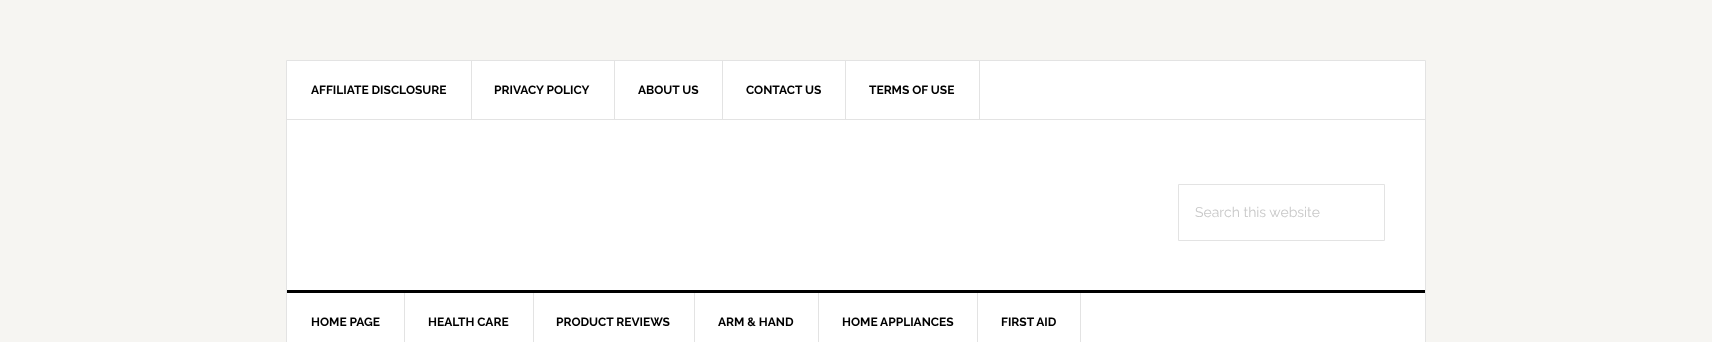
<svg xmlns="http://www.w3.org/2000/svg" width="1712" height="342">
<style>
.a{font:bold 12px Raleway;fill:#000}
.b{font:14px Raleway;fill:#c8c8c8}
</style>
<rect width="100%" height="100%" fill="#f6f5f2"/>
<path fill="#fff" stroke="#e3e3e3" d="M286.5 60.5h1139v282H286.5z"/>
<path fill="#e3e3e3" d="M287 119h1138v1H287z"/>
<path fill="#e3e3e3" d="M471 61h1v58H471z"/>
<path fill="#e3e3e3" d="M614 61h1v58H614z"/>
<path fill="#e3e3e3" d="M722 61h1v58H722z"/>
<path fill="#e3e3e3" d="M845 61h1v58H845z"/>
<path fill="#e3e3e3" d="M979 61h1v58H979z"/>
<path fill="#000" d="M287 290h1138v3H287z"/>
<path fill="none" stroke="#e3e3e3" d="M1178.5 184.5h206v56H1178.5z"/>
<path fill="#e3e3e3" d="M404 293h1v49H404z"/>
<path fill="#e3e3e3" d="M533 293h1v49H533z"/>
<path fill="#e3e3e3" d="M694 293h1v49H694z"/>
<path fill="#e3e3e3" d="M818 293h1v49H818z"/>
<path fill="#e3e3e3" d="M977 293h1v49H977z"/>
<path fill="#e3e3e3" d="M1080 293h1v49H1080z"/>
<text class="a" x="311" y="94">AFFILIATE DISCLOSURE</text>
<text class="a" x="494" y="94">PRIVACY POLICY</text>
<text class="a" x="638" y="94">ABOUT US</text>
<text class="a" x="746" y="94">CONTACT US</text>
<text class="a" x="869" y="94">TERMS OF USE</text>
<text class="b" x="1195" y="217">Search this website</text>
<text class="a" x="311" y="326">HOME PAGE</text>
<text class="a" x="428" y="326">HEALTH CARE</text>
<text class="a" x="556" y="326">PRODUCT REVIEWS</text>
<text class="a" x="718" y="326">ARM &amp; HAND</text>
<text class="a" x="842" y="326">HOME APPLIANCES</text>
<text class="a" x="1001" y="326">FIRST AID</text>
</svg>
